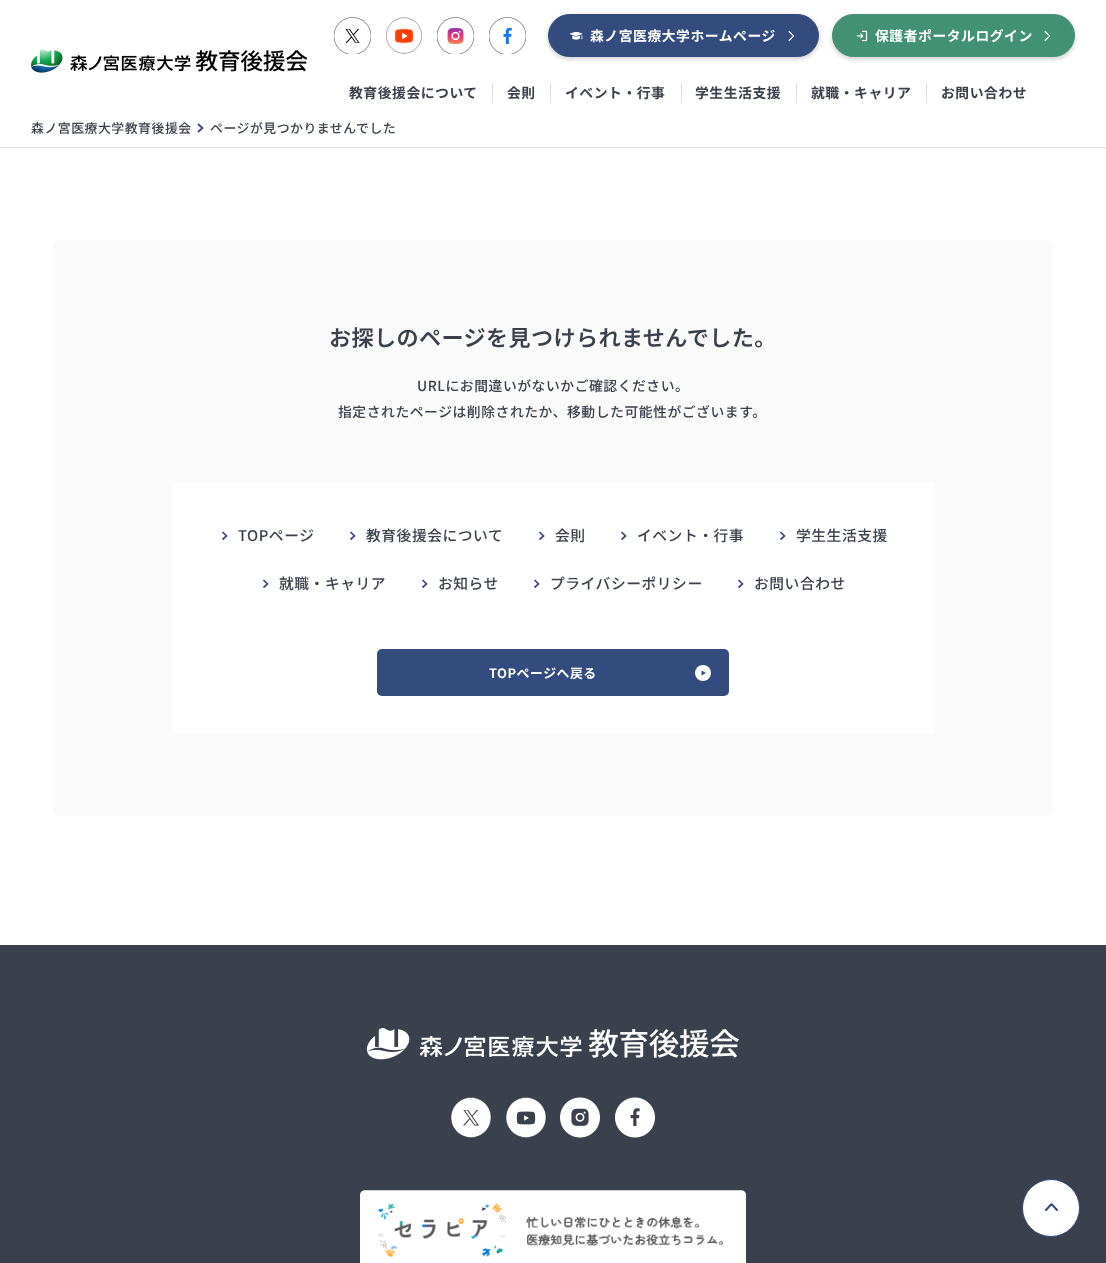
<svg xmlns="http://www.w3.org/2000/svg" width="1106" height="1263">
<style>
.a{font:bold 13.8px Noto Sans JP;letter-spacing:0.55px;fill:#fff}
.b{font:bold 13.8px Noto Sans JP;letter-spacing:0.55px;fill:#3a404c}
.c{font:500 12.9px Noto Sans JP;letter-spacing:0.5px;fill:#3a404c}
.d{font:600 22.1px Noto Sans JP;letter-spacing:0.4px;fill:#3a404c}
.e{font:500 13.8px Noto Sans JP;letter-spacing:0.55px;fill:#3a404c}
.f{font:500 14.75px Noto Sans JP;letter-spacing:0.55px;fill:#3a404c}
.g{font:bold 12.9px Noto Sans JP;letter-spacing:0.5px;fill:#fff}
</style>
<rect width="100%" height="100%" fill="#fff"/>
<image href="1.png" x="31" y="49" width="276" height="24"/>
<image href="2.png" x="334" y="17" width="37" height="37"/>
<image href="3.png" x="386" y="17" width="36" height="37"/>
<image href="4.png" x="437" y="17" width="37" height="37"/>
<image href="5.png" x="489" y="17" width="37" height="37"/>
<rect fill="#00000033" filter="blur(2.5px)" x="548" y="16" width="271" height="43" rx="21.5"/>
<rect fill="#344c7d" stroke="#344c7d" x="548.5" y="14.5" width="270" height="42" rx="21"/>
<image href="6.png" x="570" y="32" width="13" height="8"/>
<image href="7.png" x="788" y="30" width="6" height="12"/>
<rect fill="#00000033" filter="blur(2.5px)" x="832" y="16" width="243" height="43" rx="21.5"/>
<rect fill="#429174" stroke="#429174" x="832.5" y="14.5" width="242" height="42" rx="21"/>
<image href="8.png" x="856" y="30" width="12" height="12"/>
<image href="9.png" x="1044" y="30" width="7" height="12"/>
<path fill="#ddd" d="M492 83h1v20H492z"/>
<path fill="#ddd" d="M550 83h1v20H550z"/>
<path fill="#ddd" d="M681 83h1v20H681z"/>
<path fill="#ddd" d="M796 83h1v20H796z"/>
<path fill="#ddd" d="M926 83h1v20H926z"/>
<path fill="#ddd" d="M0 147h1106v1H0z"/>
<path fill="none" stroke="#344c7d" stroke-width="1.8" d="M198 132l4.5-4l-4.5-4"/>
<rect fill="#fafafa" x="53" y="240" width="1000" height="576" rx="5"/>
<path fill="#fff" d="M173 483h760v250H173z"/>
<path fill="none" stroke="#344c7d" stroke-width="1.7" d="M222.5 539.5l4-3.5l-4-4"/>
<path fill="none" stroke="#344c7d" stroke-width="1.7" d="M350.5 539.5l4-3.5l-4-4"/>
<path fill="none" stroke="#344c7d" stroke-width="1.7" d="M539.5 539.5l4-3.5l-4-4"/>
<path fill="none" stroke="#344c7d" stroke-width="1.7" d="M621.5 539.5l4-3.5l-4-4"/>
<path fill="none" stroke="#344c7d" stroke-width="1.7" d="M780.5 539.5l4-3.5l-4-4"/>
<path fill="none" stroke="#344c7d" stroke-width="1.7" d="M263.5 587.5l4-3.5l-4-4"/>
<path fill="none" stroke="#344c7d" stroke-width="1.7" d="M422.5 587.5l4-3.5l-4-4"/>
<path fill="none" stroke="#344c7d" stroke-width="1.7" d="M534.5 587.5l4-3.5l-4-4"/>
<path fill="none" stroke="#344c7d" stroke-width="1.7" d="M738.5 587.5l4-3.5l-4-4"/>
<rect fill="#344c7d" x="377" y="649" width="352" height="47" rx="5"/>
<circle fill="#fff" cx="703" cy="673" r="8"/>
<path fill="#344c7d" d="M706 673l-4.5 2.5v-5z"/>
<path fill="#3a404c" d="M0 945h1106v318H0z"/>
<image href="10.png" x="366" y="1028" width="374" height="32"/>
<image href="11.png" x="451" y="1097" width="40" height="41"/>
<image href="12.png" x="506" y="1097" width="40" height="41"/>
<image href="13.png" x="560" y="1097" width="40" height="41"/>
<image href="14.png" x="615" y="1097" width="40" height="41"/>
<image href="15.png" x="360" y="1190" width="386" height="73"/>
<circle fill="#fff" stroke="#344c7d" cx="1051" cy="1208" r="28.5"/>
<path fill="none" stroke="#344c7d" stroke-width="2" stroke-linecap="round" d="M1046 1210l5-5.5h1l5 5.5"/>
<text class="a" x="590" y="41">森ノ宮医療大学ホームページ</text>
<text class="a" x="875" y="41">保護者ポータルログイン</text>
<text class="b" x="349" y="98">教育後援会について</text>
<text class="b" x="507" y="98">会則</text>
<text class="b" x="565" y="98">イベント・行事</text>
<text class="b" x="695" y="98">学生生活支援</text>
<text class="b" x="811" y="98">就職・キャリア</text>
<text class="b" x="941" y="98">お問い合わせ</text>
<text class="c" x="31" y="133">森ノ宮医療大学教育後援会</text>
<text class="c" x="210" y="133">ページが見つかりませんでした</text>
<text class="d" x="329" y="346">お探しのページを⾒つけられませんでした。</text>
<text class="e" x="417" y="391">URLにお間違いがないかご確認ください。</text>
<text class="e" x="338" y="417">指定されたページは削除されたか、移動した可能性がございます。</text>
<text class="f" x="238" y="541">TOPページ</text>
<text class="f" x="366" y="541">教育後援会について</text>
<text class="f" x="555" y="541">会則</text>
<text class="f" x="637" y="541">イベント・行事</text>
<text class="f" x="796" y="541">学生生活支援</text>
<text class="f" x="279" y="589">就職・キャリア</text>
<text class="f" x="438" y="589">お知らせ</text>
<text class="f" x="550" y="589">プライバシーポリシー</text>
<text class="f" x="754" y="589">お問い合わせ</text>
<text class="g" x="489" y="678">TOPページへ戻る</text>
</svg>
